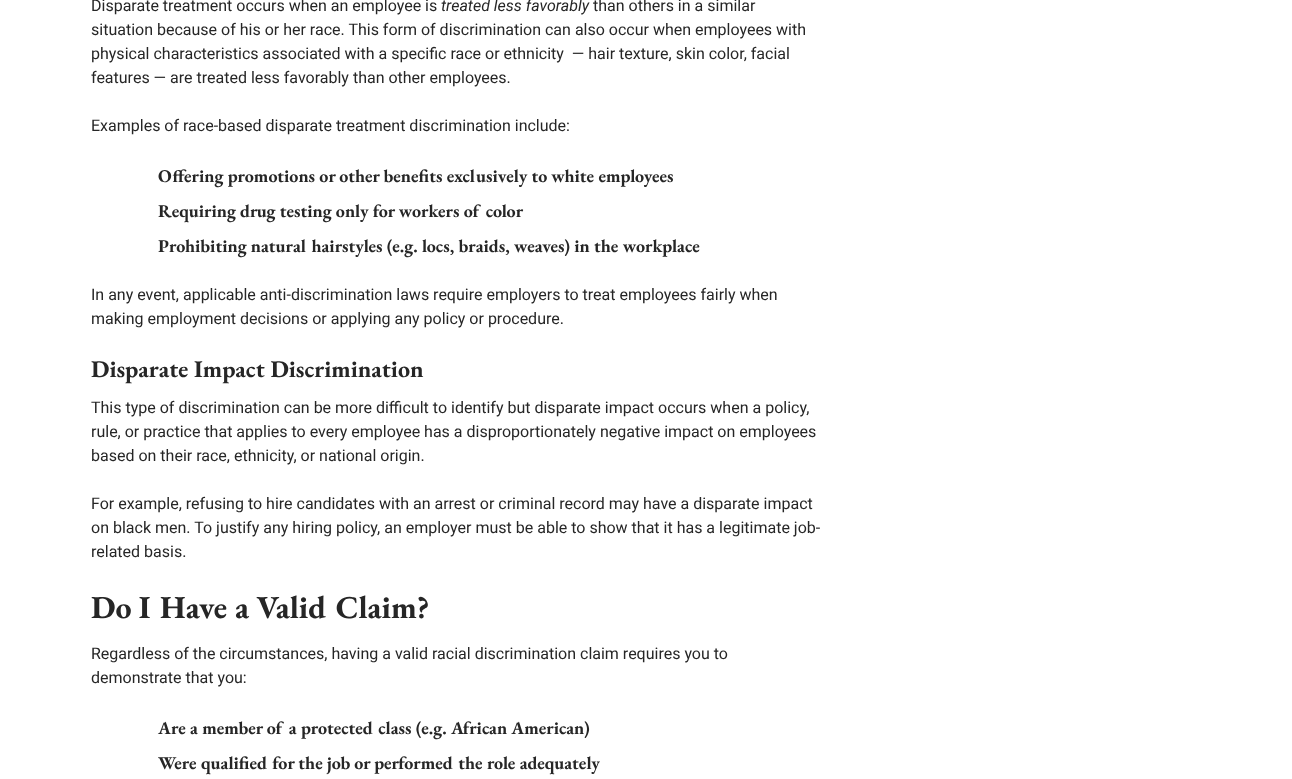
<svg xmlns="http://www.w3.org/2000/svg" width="1292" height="779">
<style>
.a{font:16px Roboto;fill:#262626}
.b{font:italic 16px Roboto;fill:#262626}
.c{font:bold 18px EB Garamond;fill:#262626}
.d{font:bold 24px EB Garamond;fill:#262626}
.e{font:bold 32px EB Garamond;fill:#262626}
</style>
<rect width="100%" height="100%" fill="#fff"/>
<text class="a" x="91" y="11">Disparate treatment occurs when an employee is</text>
<text class="b" x="441" y="11">treated less favorably</text>
<text class="a" x="593" y="11">than others in a similar</text>
<text class="a" x="91" y="35">situation because of his or her race. This form of discrimination can also occur when employees with</text>
<text class="a" xml:space="preserve" x="91" y="59">physical characteristics associated with a specific race or ethnicity  — hair texture, skin color, facial</text>
<text class="a" x="91" y="83">features — are treated less favorably than other employees.</text>
<text class="a" x="91" y="131">Examples of race-based disparate treatment discrimination include:</text>
<text class="c" x="158" y="182">Offering promotions or other benefits exclusively to white employees</text>
<text class="c" x="158" y="217">Requiring drug testing only for workers of color</text>
<text class="c" x="158" y="252">Prohibiting natural hairstyles (e.g. locs, braids, weaves) in the workplace</text>
<text class="a" x="91" y="300">In any event, applicable anti-discrimination laws require employers to treat employees fairly when</text>
<text class="a" x="91" y="324">making employment decisions or applying any policy or procedure.</text>
<text class="d" x="91" y="377">Disparate Impact Discrimination</text>
<text class="a" x="91" y="413">This type of discrimination can be more difficult to identify but disparate impact occurs when a policy,</text>
<text class="a" x="91" y="437">rule, or practice that applies to every employee has a disproportionately negative impact on employees</text>
<text class="a" x="91" y="461">based on their race, ethnicity, or national origin.</text>
<text class="a" x="91" y="509">For example, refusing to hire candidates with an arrest or criminal record may have a disparate impact</text>
<text class="a" x="91" y="533">on black men. To justify any hiring policy, an employer must be able to show that it has a legitimate job-</text>
<text class="a" x="91" y="557">related basis.</text>
<text class="e" x="91" y="618">Do I Have a Valid Claim?</text>
<text class="a" x="91" y="659">Regardless of the circumstances, having a valid racial discrimination claim requires you to</text>
<text class="a" x="91" y="683">demonstrate that you:</text>
<text class="c" x="158" y="734">Are a member of a protected class (e.g. African American)</text>
<text class="c" x="158" y="769">Were qualified for the job or performed the role adequately</text>
</svg>
